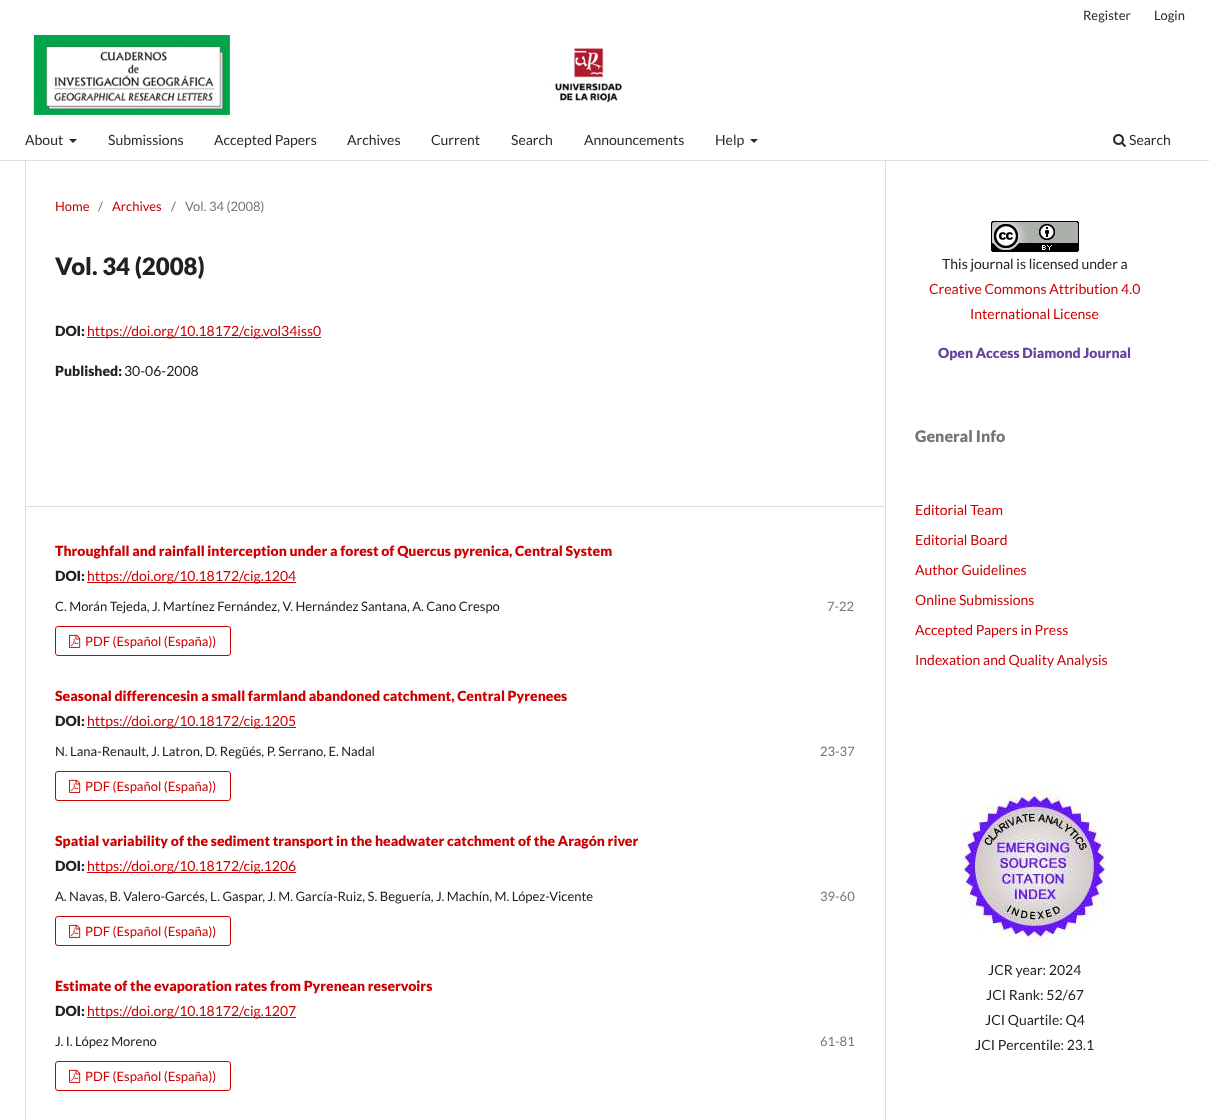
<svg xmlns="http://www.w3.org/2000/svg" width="1209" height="1120">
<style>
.a{font:13px Lato;fill:#292929}
.b{font:14px Lato;fill:#292929}
.c{font:13px Lato;fill:#c00}
.d{font:13px Lato;fill:#757575}
.e{font:900 24px Lato;fill:#212121}
.f{font:900 14px Lato;fill:#212121}
.g{font:14px Lato;fill:#c00}
.h{font:14px Lato;fill:#212121}
.i{font:900 14px Lato;fill:#c00}
.j{font:13px Lato;fill:#212121}
.k{font:900 14px Lato;fill:#64439c}
.l{font:900 16px Lato;fill:#757575}
</style>
<rect width="100%" height="100%" fill="#fff"/>
<path fill="#ddd" d="M0 160h1209v1H0z"/>
<path fill="#292929" d="M69 139h8l-4 4z"/>
<path fill="#292929" d="M750 139h8l-4 4z"/>
<image href="1.png" x="1113" y="134" width="13" height="13"/>
<image href="2.png" x="33" y="35" width="589" height="80"/>
<path fill="#ddd" d="M25 161h1v959H25z"/>
<path fill="#c00" d="M87 337h234v1H87z"/>
<path fill="#ddd" d="M25 506h860v1H25z"/>
<path fill="#c00" d="M87 582h209v1H87z"/>
<rect fill="none" stroke="#c00" x="55.5" y="626.5" width="175" height="29" rx="2.5"/>
<image href="3.png" x="69" y="634" width="12" height="14"/>
<path fill="#c00" d="M87 727h209v1H87z"/>
<rect fill="none" stroke="#c00" x="55.5" y="771.5" width="175" height="29" rx="2.5"/>
<image href="3.png" x="69" y="779" width="12" height="14"/>
<path fill="#c00" d="M87 872h209v1H87z"/>
<rect fill="none" stroke="#c00" x="55.5" y="916.5" width="175" height="29" rx="2.5"/>
<image href="3.png" x="69" y="924" width="12" height="14"/>
<path fill="#c00" d="M87 1017h209v1H87z"/>
<rect fill="none" stroke="#c00" x="55.5" y="1061.5" width="175" height="29" rx="2.5"/>
<image href="3.png" x="69" y="1069" width="12" height="14"/>
<path fill="#ddd" d="M885 161h1v959H885z"/>
<image href="4.png" x="991" y="221" width="88" height="31"/>
<image href="5.png" x="960" y="789" width="146" height="162"/>
<text class="a" x="1083" y="20">Register</text>
<text class="a" x="1154" y="20">Login</text>
<text class="b" x="25" y="145">About</text>
<text class="b" x="108" y="145">Submissions</text>
<text class="b" x="214" y="145">Accepted Papers</text>
<text class="b" x="347" y="145">Archives</text>
<text class="b" x="431" y="145">Current</text>
<text class="b" x="511" y="145">Search</text>
<text class="b" x="584" y="145">Announcements</text>
<text class="b" x="715" y="145">Help</text>
<text class="b" x="1129" y="145">Search</text>
<text class="c" x="55" y="211">Home</text>
<text class="d" x="98" y="211">/</text>
<text class="c" x="112" y="211">Archives</text>
<text class="d" x="171" y="211">/</text>
<text class="d" x="185" y="211">Vol. 34 (2008)</text>
<text class="e" x="55" y="275">Vol. 34 (2008)</text>
<text class="f" x="55" y="336">DOI:</text>
<text class="g" x="87" y="336">https://doi.org/10.18172/cig.vol34iss0</text>
<text class="f" x="55" y="376">Published:</text>
<text class="h" x="124" y="376">30-06-2008</text>
<text class="i" x="55" y="556">Throughfall and rainfall interception under a forest of Quercus pyrenica, Central System</text>
<text class="f" x="55" y="581">DOI:</text>
<text class="g" x="87" y="581">https://doi.org/10.18172/cig.1204</text>
<text class="j" x="55" y="611">C. Morán Tejeda, J. Martínez Fernández, V. Hernández Santana, A. Cano Crespo</text>
<text class="d" x="827" y="611">7-22</text>
<text class="c" x="85" y="646">PDF (Español (España))</text>
<text class="i" x="55" y="701">Seasonal differencesin a small farmland abandoned catchment, Central Pyrenees</text>
<text class="f" x="55" y="726">DOI:</text>
<text class="g" x="87" y="726">https://doi.org/10.18172/cig.1205</text>
<text class="j" x="55" y="756">N. Lana-Renault, J. Latron, D. Regüés, P. Serrano, E. Nadal</text>
<text class="d" x="820" y="756">23-37</text>
<text class="c" x="85" y="791">PDF (Español (España))</text>
<text class="i" x="55" y="846">Spatial variability of the sediment transport in the headwater catchment of the Aragón river</text>
<text class="f" x="55" y="871">DOI:</text>
<text class="g" x="87" y="871">https://doi.org/10.18172/cig.1206</text>
<text class="j" x="55" y="901">A. Navas, B. Valero-Garcés, L. Gaspar, J. M. García-Ruiz, S. Beguería, J. Machín, M. López-Vicente</text>
<text class="d" x="820" y="901">39-60</text>
<text class="c" x="85" y="936">PDF (Español (España))</text>
<text class="i" x="55" y="991">Estimate of the evaporation rates from Pyrenean reservoirs</text>
<text class="f" x="55" y="1016">DOI:</text>
<text class="g" x="87" y="1016">https://doi.org/10.18172/cig.1207</text>
<text class="j" x="55" y="1046">J. I. López Moreno</text>
<text class="d" x="820" y="1046">61-81</text>
<text class="c" x="85" y="1081">PDF (Español (España))</text>
<text class="h" x="942" y="269">This journal is licensed under a</text>
<text class="g" x="929" y="294">Creative Commons Attribution 4.0</text>
<text class="g" x="970" y="319">International License</text>
<text class="k" x="938" y="358">Open Access Diamond Journal</text>
<text class="l" x="915" y="442">General Info</text>
<text class="g" x="915" y="515">Editorial Team</text>
<text class="g" x="915" y="545">Editorial Board</text>
<text class="g" x="915" y="575">Author Guidelines</text>
<text class="g" x="915" y="605">Online Submissions</text>
<text class="g" x="915" y="635">Accepted Papers in Press</text>
<text class="g" x="915" y="665">Indexation and Quality Analysis</text>
<text class="h" x="988" y="975">JCR year: 2024</text>
<text class="h" x="986" y="1000">JCI Rank: 52/67</text>
<text class="h" x="985" y="1025">JCI Quartile: Q4</text>
<text class="h" x="975" y="1050">JCI Percentile: 23.1</text>
</svg>
